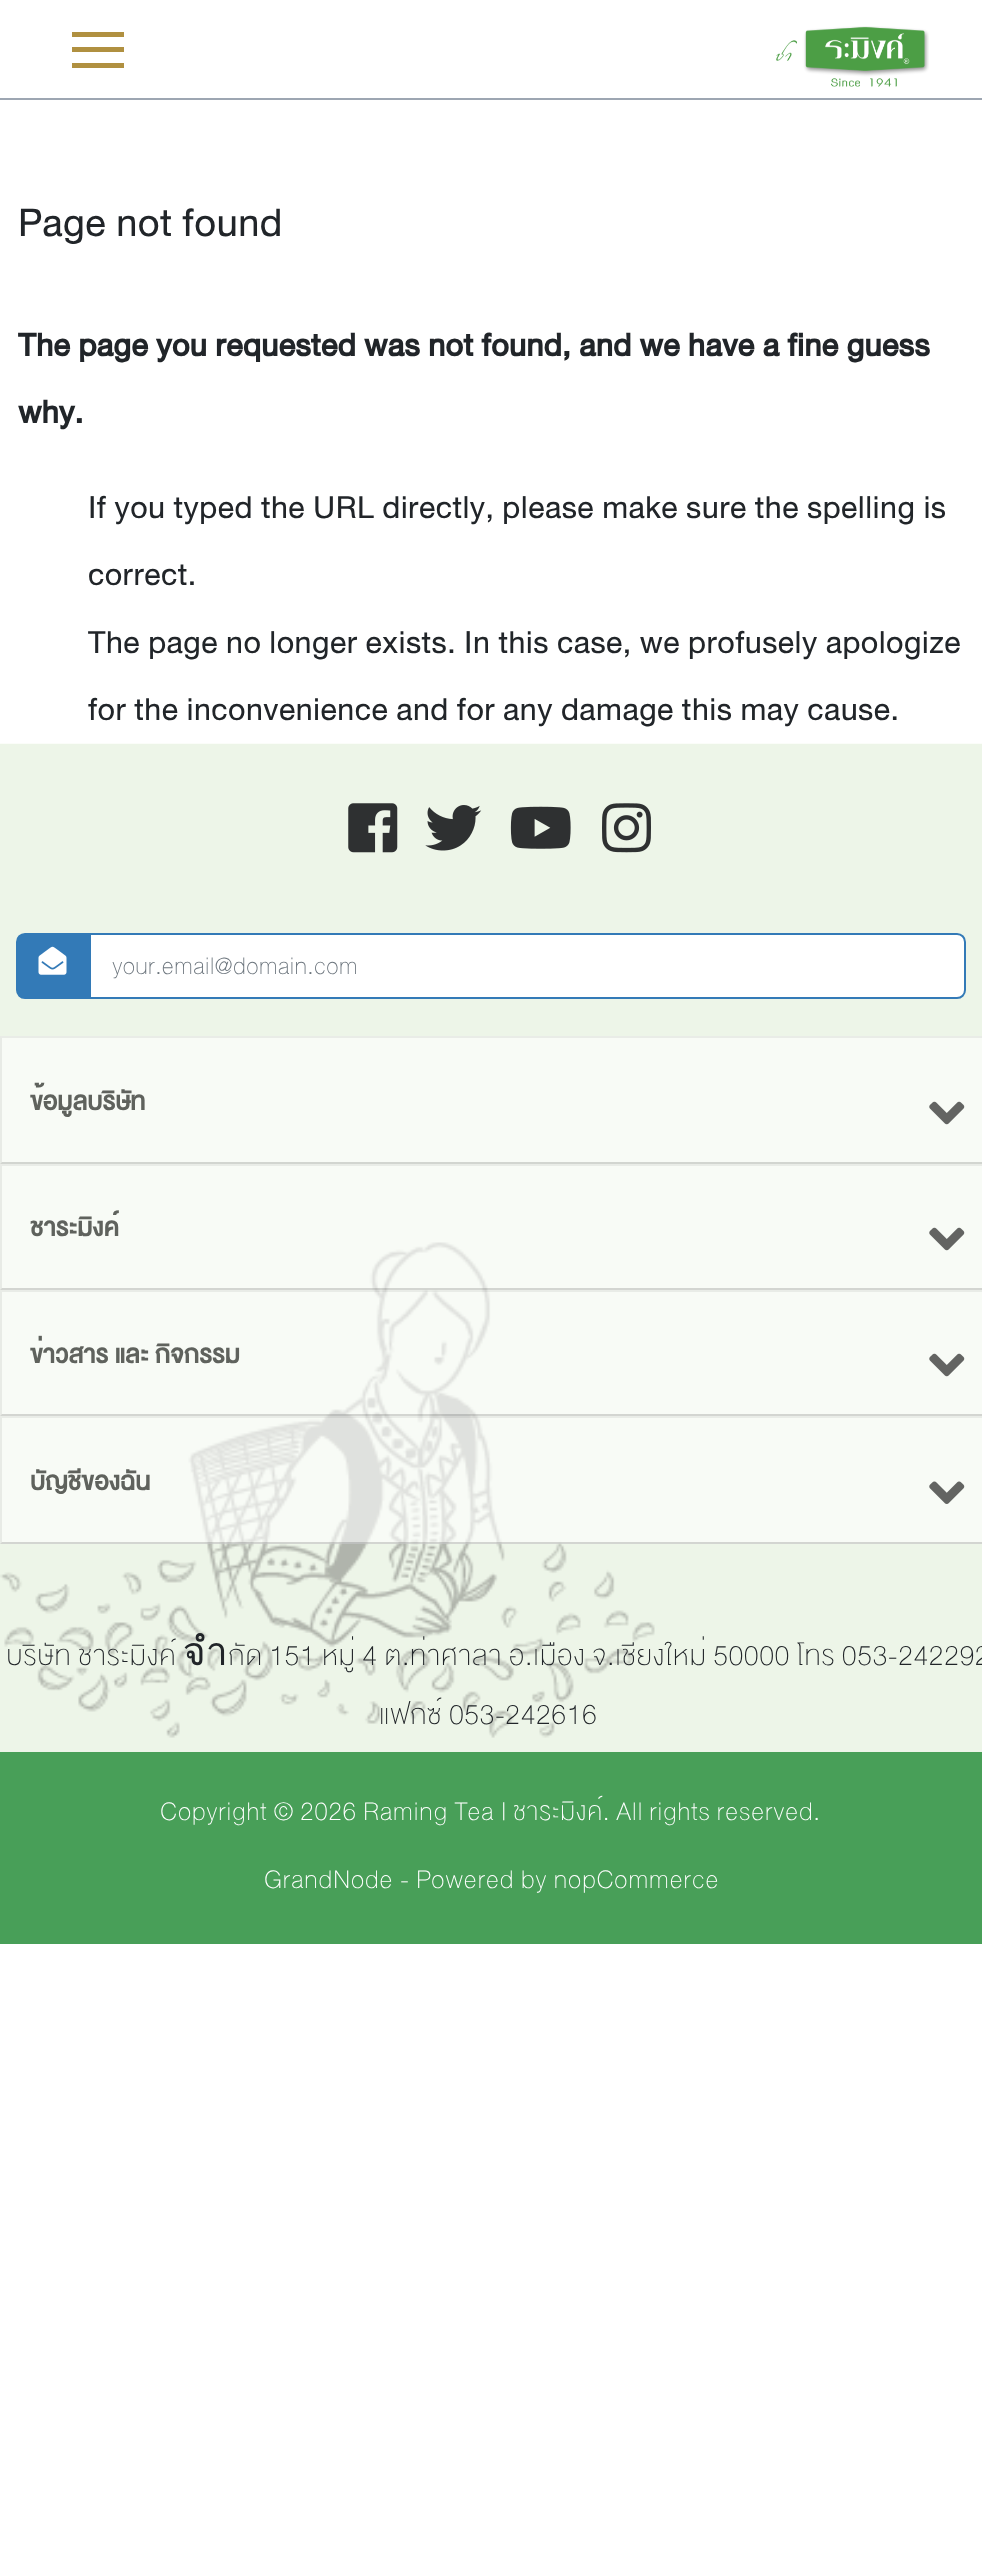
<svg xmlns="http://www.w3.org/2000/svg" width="982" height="2573">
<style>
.a{font:56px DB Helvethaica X;letter-spacing:0.45px;fill:#212529}
.b{font:bold 44.8px DB Helvethaica X;letter-spacing:0.45px;fill:#212529}
.c{font:44.8px DB Helvethaica X;letter-spacing:0.45px;fill:#212529}
.d{font:100 33.5px DB Helvethaica X;fill:#6c757d}
.e{font:bold 35px DB Helvethaica X;letter-spacing:0.45px;fill:#5f625d}
.f{font:100 39.2px DB Helvethaica X;letter-spacing:0.45px;fill:#212529}
.g{font:100 35.75px DB Helvethaica X;letter-spacing:0.45px;fill:#fff}
</style>
<rect width="100%" height="100%" fill="#fff"/>
<path fill="#9da6b2" d="M0 98h982v2H0z"/>
<path fill="#b09040" d="M72 32h52v5H72z"/>
<path fill="#b09040" d="M72 47h52v5H72z"/>
<path fill="#b09040" d="M72 63h52v5H72z"/>
<image href="1.png" x="776" y="26" width="153" height="61"/>
<path fill="#edf5e8" d="M0 1738h982v14H0z"/>
<image href="2.png" x="0" y="743" width="982" height="995"/>
<image href="3.png" x="348" y="803" width="50" height="50"/>
<image href="4.png" x="425" y="805" width="57" height="46"/>
<image href="5.png" x="510" y="806" width="61" height="43"/>
<image href="6.png" x="602" y="803" width="49" height="50"/>
<path fill="#337ab7" stroke="#337ab7" stroke-width="2" d="M25 934h63v64h-63c-4.5 0-8-3.5-8-8v-48c0-4.5 3.5-8 8-8z"/>
<image href="7.png" x="38" y="946" width="29" height="29"/>
<path fill="#fff" stroke="#337ab7" stroke-width="2" d="M90 934h867c4.5 0 8 3.5 8 8v48c0 4.5-3.5 8-8 8h-867z"/>
<path fill="#f8fbf6" d="M0 1036h982v128H0z"/>
<path fill="#e9ece7" d="M0 1036h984l-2 2h-980z"/>
<path fill="#d2d5d0" d="M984 1164h-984l2-2h980z"/>
<path fill="#5f625d1a" d="M0 1164v-128l2 2v124z"/>
<image href="8.png" x="929" y="1101" width="36" height="24"/>
<path fill="#ffffff99" d="M0 1164h982v126H0z"/>
<path fill="#e9ece7" d="M0 1164h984l-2 2h-980z"/>
<path fill="#00000026" d="M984 1290h-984l2-2h980z"/>
<path fill="#5f625d1a" d="M0 1290v-126l2 2v122z"/>
<image href="9.png" x="929" y="1227" width="36" height="24"/>
<path fill="#ffffff99" d="M0 1290h982v126H0z"/>
<path fill="#0000000f" d="M0 1290h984l-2 2h-980z"/>
<path fill="#00000026" d="M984 1416h-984l2-2h980z"/>
<path fill="#5f625d1a" d="M0 1416v-126l2 2v122z"/>
<image href="9.png" x="929" y="1353" width="36" height="24"/>
<path fill="#ffffff99" d="M0 1416h982v128H0z"/>
<path fill="#0000000f" d="M0 1416h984l-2 2h-980z"/>
<path fill="#00000026" d="M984 1544h-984l2-2h980z"/>
<path fill="#5f625d1a" d="M0 1544v-128l2 2v124z"/>
<image href="10.png" x="929" y="1481" width="36" height="23"/>
<path fill="#489f58" d="M0 1752h982v192H0z"/>
<text class="a" x="18" y="236">Page not found</text>
<text class="b" x="18" y="356">The page you requested was not found, and we have a fine guess</text>
<text class="b" x="18" y="423">why.</text>
<text class="c" x="88" y="518">If you typed the URL directly, please make sure the spelling is</text>
<text class="c" x="88" y="585">correct.</text>
<text class="c" x="88" y="653">The page no longer exists. In this case, we profusely apologize</text>
<text class="c" x="88" y="720">for the inconvenience and for any damage this may cause.</text>
<text class="d" x="112" y="974">your.email@domain.com</text>
<text class="e" x="30" y="1110">ข้อมูลบริษัท</text>
<text class="e" x="30" y="1236">ชาระมิงค์</text>
<text class="e" x="30" y="1363">ข่าวสาร และ กิจกรรม</text>
<text class="e" x="30" y="1490">บัญชีของฉัน</text>
<text class="f" x="6" y="1665" word-spacing="-0.5">บริษัท ชาระมิงค์ จำกัด 151 หมู่ 4 ต.ท่าศาลา อ.เมือง จ.เชียงใหม่ 50000 โทร 053-242292</text>
<text class="f" x="379" y="1724">แฟกซ์ 053-242616</text>
<text class="g" x="160" y="1820">Copyright © 2026 Raming Tea</text>
<text class="g" x="501" y="1820" word-spacing="-0.5">| ชาระมิงค์. All rights reserved.</text>
<text class="g" x="264" y="1888">GrandNode</text>
<text class="g" x="400" y="1888">- Powered by nopCommerce</text>
</svg>
